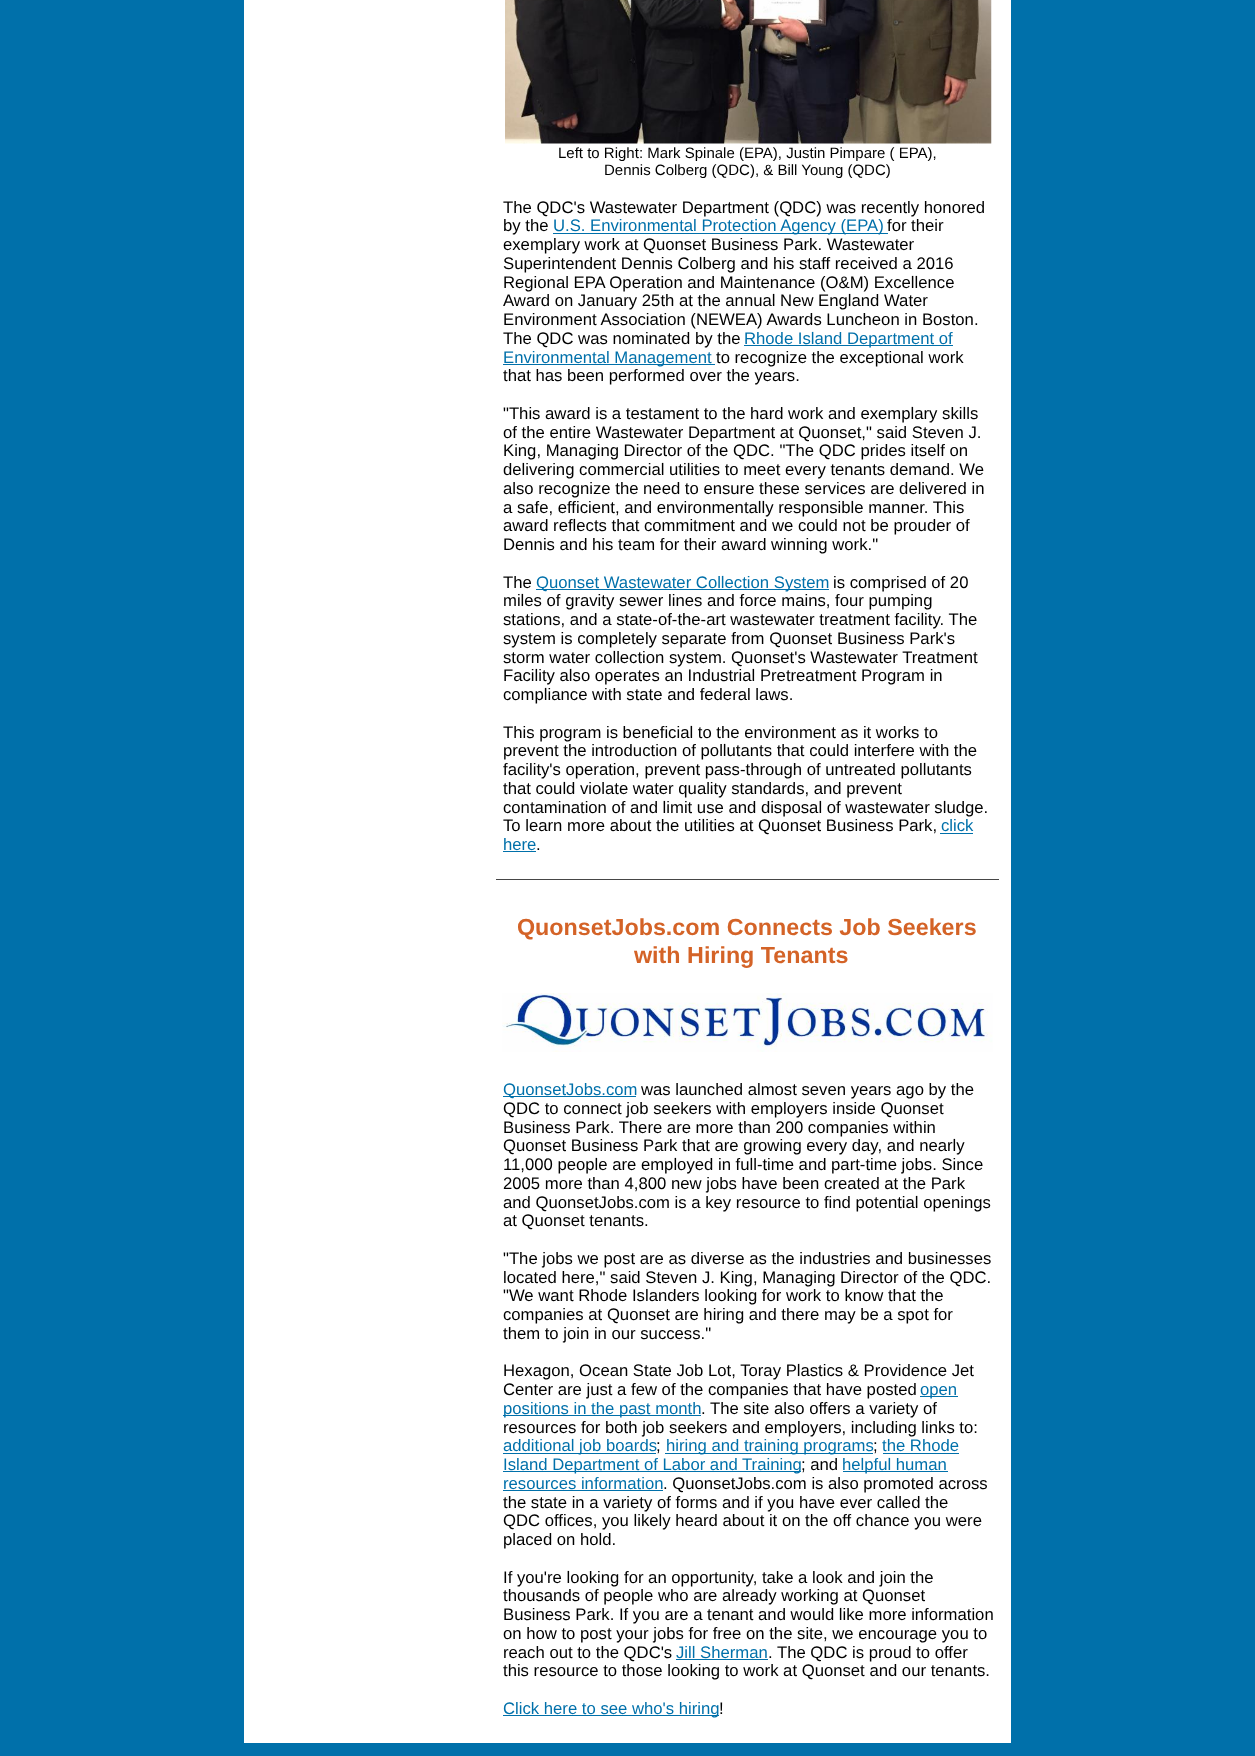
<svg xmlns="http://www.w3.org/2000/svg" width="1255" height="1756">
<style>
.a{font:15px Liberation Sans;fill:#000}
.b{font:16.7px Liberation Sans;fill:#000}
.c{font:16.7px Liberation Sans;fill:#0070aa}
.d{font:bold 23.3px Liberation Sans;fill:#d46327}
</style>
<rect width="100%" height="100%" fill="#0070aa"/>
<path fill="#fff" d="M244 0h767v1743H244z"/>
<image href="1.png" x="505" y="0" width="487" height="144"/>
<path fill="#0070aa" d="M553 233h335v1H553z"/>
<path fill="#0070aa" d="M744 345h209v1H744z"/>
<path fill="#0070aa" d="M503 364h212v1H503z"/>
<path fill="#0070aa" d="M536 589h293v1H536z"/>
<path fill="#0070aa" d="M940 833h33v1H940z"/>
<path fill="#0070aa" d="M503 851h33v1H503z"/>
<path fill="#464646" d="M496 879h503v1H496z"/>
<image href="2.png" x="502" y="993" width="491" height="59"/>
<path fill="#0070aa" d="M503 1096h133v1H503z"/>
<path fill="#0070aa" d="M920 1396h38v1H920z"/>
<path fill="#0070aa" d="M503 1415h198v1H503z"/>
<path fill="#0070aa" d="M503 1453h153v1H503z"/>
<path fill="#0070aa" d="M665 1453h208v1H665z"/>
<path fill="#0070aa" d="M883 1453h76v1H883z"/>
<path fill="#0070aa" d="M503 1471h298v1H503z"/>
<path fill="#0070aa" d="M843 1471h105v1H843z"/>
<path fill="#0070aa" d="M503 1490h160v1H503z"/>
<path fill="#0070aa" d="M676 1659h92v1H676z"/>
<path fill="#0070aa" d="M503 1715h216v1H503z"/>
<text class="a" x="558" y="158">Left to Right: Mark Spinale (EPA), Justin Pimpare ( EPA),</text>
<text class="a" x="604" y="175">Dennis Colberg (QDC), &amp; Bill Young (QDC)</text>
<text class="b" x="503" y="213">The QDC's Wastewater Department (QDC) was recently honored</text>
<text class="b" x="503" y="231">by the</text>
<text class="c" x="553" y="231">U.S. Environmental Protection Agency (EPA)</text>
<text class="b" x="887" y="231">for their</text>
<text class="b" x="503" y="250">exemplary work at Quonset Business Park. Wastewater</text>
<text class="b" x="503" y="269">Superintendent Dennis Colberg and his staff received a 2016</text>
<text class="b" x="503" y="288">Regional EPA Operation and Maintenance (O&amp;M) Excellence</text>
<text class="b" x="503" y="306">Award on January 25th at the annual New England Water</text>
<text class="b" x="503" y="325">Environment Association (NEWEA) Awards Luncheon in Boston.</text>
<text class="b" x="503" y="344">The QDC was nominated by the</text>
<text class="c" x="744" y="344">Rhode Island Department of</text>
<text class="c" x="503" y="363">Environmental Management</text>
<text class="b" x="716" y="363">to recognize the exceptional work</text>
<text class="b" x="503" y="381">that has been performed over the years.</text>
<text class="b" x="503" y="419">"This award is a testament to the hard work and exemplary skills</text>
<text class="b" x="503" y="438">of the entire Wastewater Department at Quonset," said Steven J.</text>
<text class="b" x="503" y="456">King, Managing Director of the QDC. "The QDC prides itself on</text>
<text class="b" x="503" y="475">delivering commercial utilities to meet every tenants demand. We</text>
<text class="b" x="503" y="494">also recognize the need to ensure these services are delivered in</text>
<text class="b" x="503" y="513">a safe, efficient, and environmentally responsible manner. This</text>
<text class="b" x="503" y="531">award reflects that commitment and we could not be prouder of</text>
<text class="b" x="503" y="550">Dennis and his team for their award winning work."</text>
<text class="b" x="503" y="588">The</text>
<text class="c" x="536" y="588">Quonset Wastewater Collection System</text>
<text class="b" x="833" y="588">is comprised of 20</text>
<text class="b" x="503" y="606">miles of gravity sewer lines and force mains, four pumping</text>
<text class="b" x="503" y="625">stations, and a state-of-the-art wastewater treatment facility. The</text>
<text class="b" x="503" y="644">system is completely separate from Quonset Business Park's</text>
<text class="b" x="503" y="663">storm water collection system. Quonset's Wastewater Treatment</text>
<text class="b" x="503" y="681">Facility also operates an Industrial Pretreatment Program in</text>
<text class="b" x="503" y="700">compliance with state and federal laws.</text>
<text class="b" x="503" y="738">This program is beneficial to the environment as it works to</text>
<text class="b" x="503" y="756">prevent the introduction of pollutants that could interfere with the</text>
<text class="b" x="503" y="775">facility's operation, prevent pass-through of untreated pollutants</text>
<text class="b" x="503" y="794">that could violate water quality standards, and prevent</text>
<text class="b" x="503" y="813">contamination of and limit use and disposal of wastewater sludge.</text>
<text class="b" x="503" y="831">To learn more about the utilities at Quonset Business Park,</text>
<text class="c" x="941" y="831">click</text>
<text class="c" x="503" y="850">here</text>
<text class="b" x="536" y="850">.</text>
<text class="d" x="517" y="935">QuonsetJobs.com Connects Job Seekers</text>
<text class="d" x="634" y="963">with Hiring Tenants</text>
<text class="c" x="503" y="1095">QuonsetJobs.com</text>
<text class="b" x="641" y="1095">was launched almost seven years ago by the</text>
<text class="b" x="503" y="1114">QDC to connect job seekers with employers inside Quonset</text>
<text class="b" x="503" y="1133">Business Park. There are more than 200 companies within</text>
<text class="b" x="503" y="1151">Quonset Business Park that are growing every day, and nearly</text>
<text class="b" x="503" y="1170">11,000 people are employed in full-time and part-time jobs. Since</text>
<text class="b" x="503" y="1189">2005 more than 4,800 new jobs have been created at the Park</text>
<text class="b" x="503" y="1208">and QuonsetJobs.com is a key resource to find potential openings</text>
<text class="b" x="503" y="1226">at Quonset tenants.</text>
<text class="b" x="503" y="1264">"The jobs we post are as diverse as the industries and businesses</text>
<text class="b" x="503" y="1283">located here," said Steven J. King, Managing Director of the QDC.</text>
<text class="b" x="503" y="1301">"We want Rhode Islanders looking for work to know that the</text>
<text class="b" x="503" y="1320">companies at Quonset are hiring and there may be a spot for</text>
<text class="b" x="503" y="1339">them to join in our success."</text>
<text class="b" x="503" y="1376">Hexagon, Ocean State Job Lot, Toray Plastics &amp; Providence Jet</text>
<text class="b" x="503" y="1395">Center are just a few of the companies that have posted</text>
<text class="c" x="920" y="1395">open</text>
<text class="c" x="503" y="1414">positions in the past month</text>
<text class="b" x="701" y="1414">. The site also offers a variety of</text>
<text class="b" x="503" y="1433">resources for both job seekers and employers, including links to:</text>
<text class="c" x="503" y="1451">additional job boards</text>
<text class="b" x="656" y="1451">;</text>
<text class="c" x="666" y="1451">hiring and training programs</text>
<text class="b" x="873" y="1451">;</text>
<text class="c" x="882" y="1451">the Rhode</text>
<text class="c" x="503" y="1470">Island Department of Labor and Training</text>
<text class="b" x="801" y="1470">; and</text>
<text class="c" x="842" y="1470">helpful human</text>
<text class="c" x="503" y="1489">resources information</text>
<text class="b" x="663" y="1489">. QuonsetJobs.com is also promoted across</text>
<text class="b" x="503" y="1508">the state in a variety of forms and if you have ever called the</text>
<text class="b" x="503" y="1526">QDC offices, you likely heard about it on the off chance you were</text>
<text class="b" x="503" y="1545">placed on hold.</text>
<text class="b" x="503" y="1583">If you're looking for an opportunity, take a look and join the</text>
<text class="b" x="503" y="1601">thousands of people who are already working at Quonset</text>
<text class="b" x="503" y="1620">Business Park. If you are a tenant and would like more information</text>
<text class="b" x="503" y="1639">on how to post your jobs for free on the site, we encourage you to</text>
<text class="b" x="503" y="1658">reach out to the QDC's</text>
<text class="c" x="676" y="1658">Jill Sherman</text>
<text class="b" x="768" y="1658">. The QDC is proud to offer</text>
<text class="b" x="503" y="1676">this resource to those looking to work at Quonset and our tenants.</text>
<text class="c" x="503" y="1714">Click here to see who's hiring</text>
<text class="b" x="719" y="1714">!</text>
</svg>
